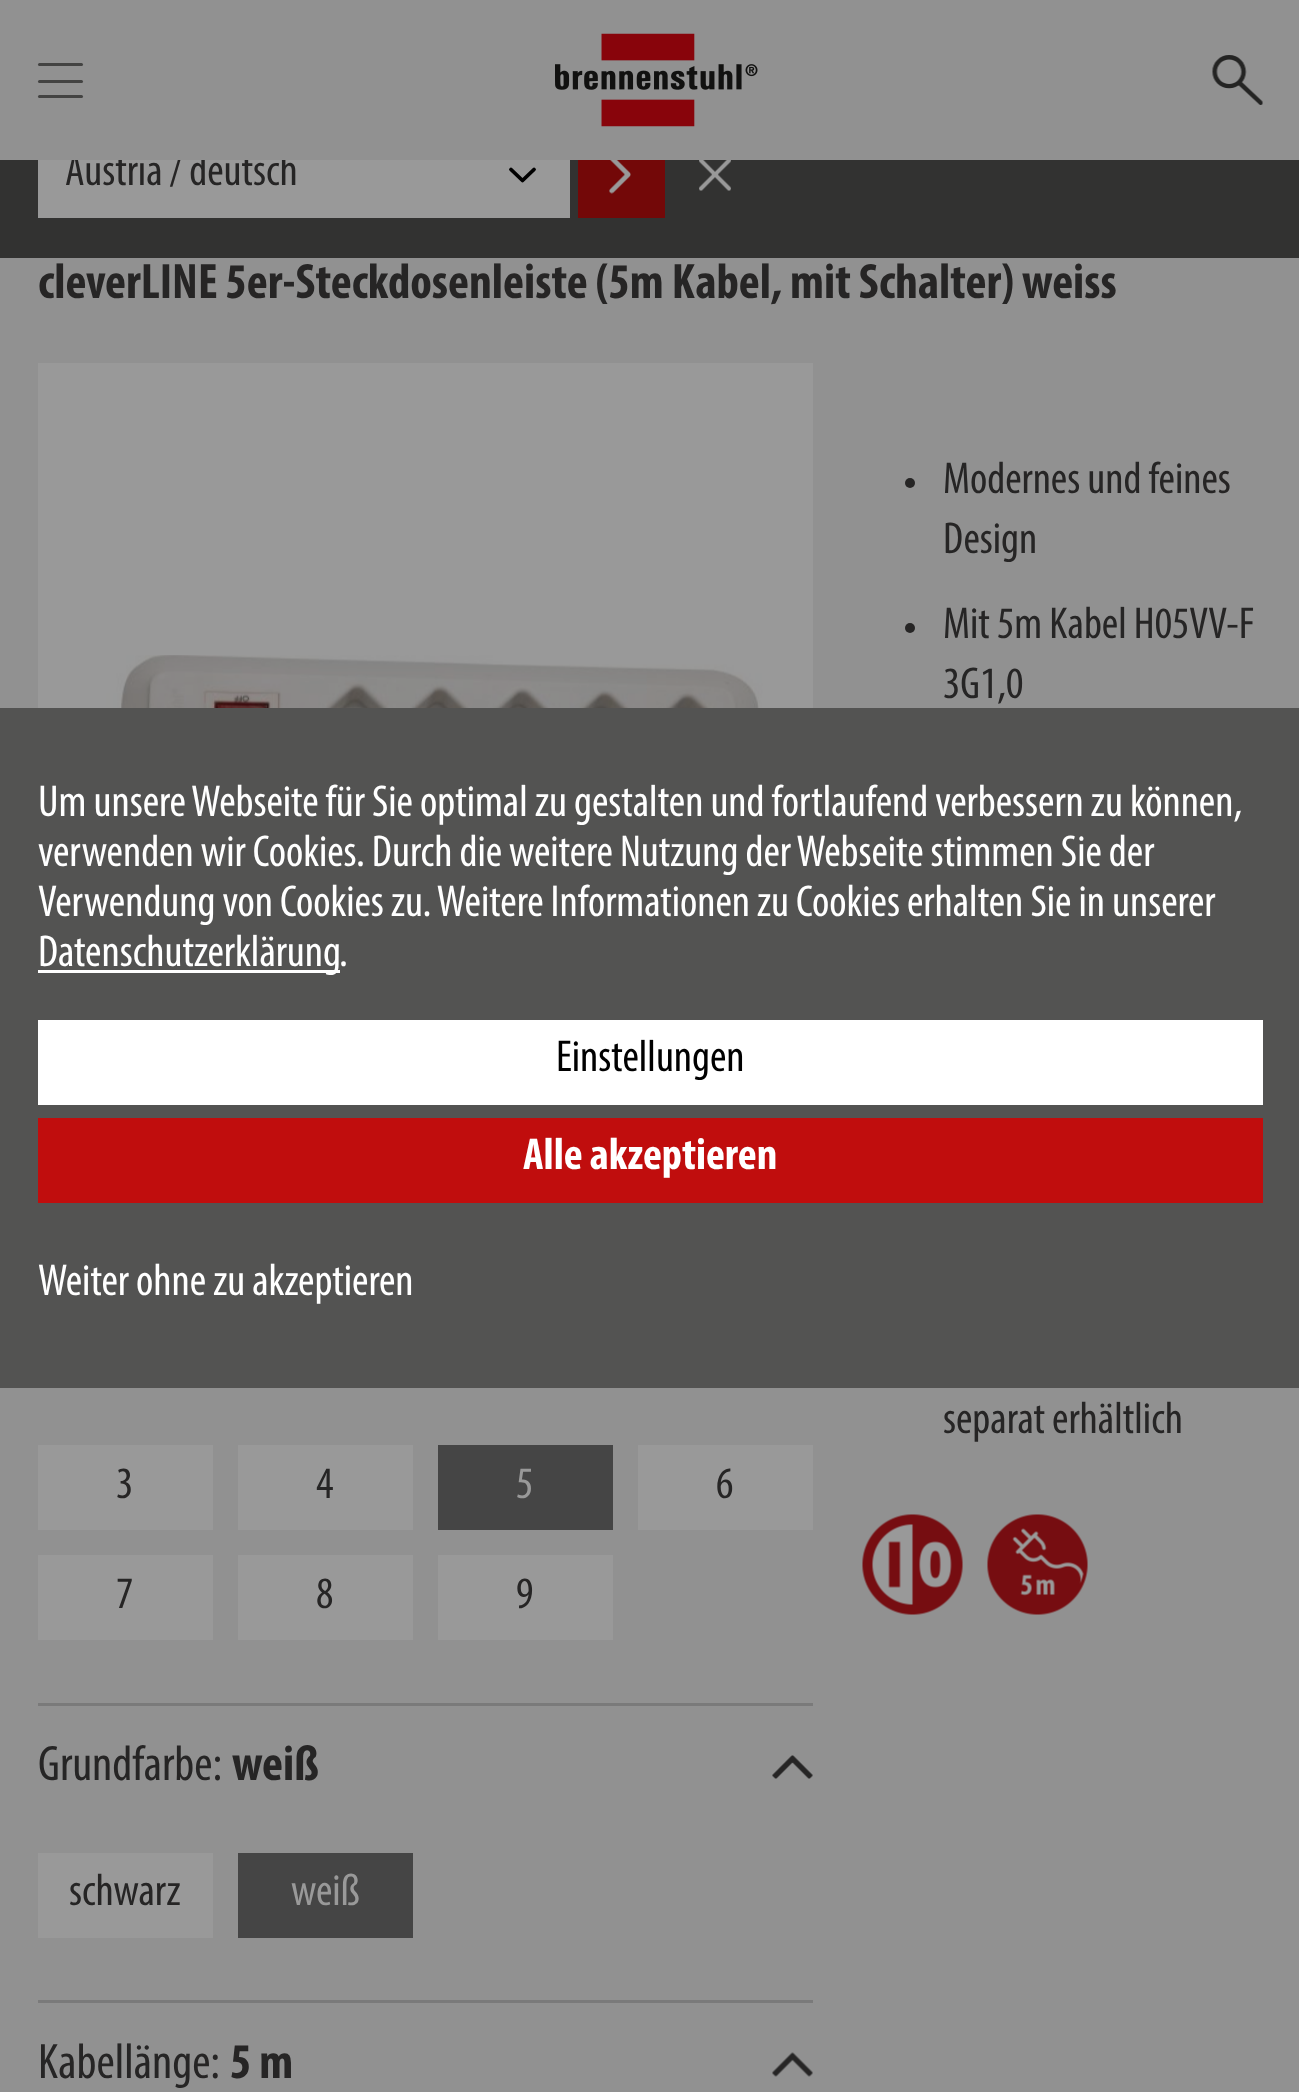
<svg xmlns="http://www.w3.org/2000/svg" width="1299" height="2092">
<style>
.a{font:45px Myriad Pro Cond;fill:#262525}
.b{font:bold 50px Myriad Pro Cond;fill:#262525}
.c{font:45px Myriad Pro Cond;fill:#999}
.d{font:50px Myriad Pro Cond;fill:#262525}
.e{font:45px Myriad Pro Cond;fill:#fff}
.f{font:45px Myriad Pro Cond;fill:#000}
.g{font:bold 45px Myriad Pro Cond;fill:#fff}
</style>
<rect width="100%" height="100%" fill="#919191"/>
<rect fill="#434342" x="38" y="63" width="45" height="3" rx="1.5"/>
<rect fill="#434342" x="38" y="80" width="45" height="3" rx="1.5"/>
<rect fill="#434342" x="38" y="95" width="45" height="3" rx="1.5"/>
<image href="1.png" x="555" y="33" width="203" height="94"/>
<image href="2.png" x="1212" y="55" width="51" height="50"/>
<path fill="#323231" d="M0 160h1299v98H0z"/>
<path fill="#999" d="M38 160h532v58H38z"/>
<path fill="none" stroke="#000" stroke-width="3.8" stroke-linecap="round" stroke-linejoin="round" d="M511 169.5l11.5 11l11.5-11"/>
<path fill="#730808" d="M578 160h87v58H578z"/>
<image href="3.png" x="609" y="160" width="22" height="34"/>
<image href="4.png" x="699" y="160" width="32" height="31"/>
<circle fill="#262525" cx="910" cy="483" r="5"/>
<circle fill="#262525" cx="910" cy="628" r="5"/>
<image href="5.png" x="862" y="1514" width="101" height="101"/>
<image href="6.png" x="987" y="1514" width="101" height="101"/>
<path fill="#999" d="M38 363h775v345H38z"/>
<image href="7.png" x="87" y="655" width="676" height="53"/>
<path fill="#7a7a7a" d="M38 1703h775v3H38z"/>
<path fill="#999" d="M38 1445h175v85H38z"/>
<path fill="#999" d="M238 1445h175v85H238z"/>
<path fill="#454545" d="M438 1445h175v85H438z"/>
<path fill="#999" d="M638 1445h175v85H638z"/>
<path fill="#999" d="M38 1555h175v85H38z"/>
<path fill="#999" d="M238 1555h175v85H238z"/>
<path fill="#999" d="M438 1555h175v85H438z"/>
<image href="8.png" x="772" y="1755" width="41" height="24"/>
<path fill="#7a7a7a" d="M38 2000h775v3H38z"/>
<path fill="#999" d="M38 1853h175v85H38z"/>
<path fill="#454545" d="M238 1853h175v85H238z"/>
<image href="9.png" x="772" y="2052" width="41" height="25"/>
<path fill="#535352" d="M0 708h1299v680H0z"/>
<path fill="#fff" d="M38 970h302v3H38z"/>
<path fill="#fff" d="M38 1020h1225v85H38z"/>
<path fill="#c00d0d" d="M38 1118h1225v85H38z"/>
<text class="a" x="65" y="185">Austria / deutsch</text>
<path fill="#919191" d="M71 153h215v7H71z"/>
<text class="b" x="38" y="298">cleverLINE 5er-Steckdosenleiste (5m Kabel, mit Schalter) weiss</text>
<text class="a" x="943" y="493">Modernes und feines</text>
<text class="a" x="943" y="553">Design</text>
<text class="a" x="943" y="638">Mit 5m Kabel H05VV-F</text>
<text class="a" x="943" y="698">3G1,0</text>
<text class="a" x="943" y="1433">separat erhältlich</text>
<text class="a" x="116" y="1498">3</text>
<text class="a" x="316" y="1498">4</text>
<text class="c" x="516" y="1498">5</text>
<text class="a" x="716" y="1498">6</text>
<text class="a" x="116" y="1608">7</text>
<text class="a" x="316" y="1608">8</text>
<text class="a" x="516" y="1608">9</text>
<text class="d" x="38" y="1780">Grundfarbe:</text>
<text class="b" x="232" y="1780">weiß</text>
<text class="a" x="69" y="1905">schwarz</text>
<text class="c" x="291" y="1905">weiß</text>
<text class="d" x="38" y="2078">Kabellänge:</text>
<text class="b" x="230" y="2078">5 m</text>
<text class="e" x="38" y="816">Um unsere Webseite für Sie optimal zu gestalten und fortlaufend verbessern zu können,</text>
<text class="e" x="38" y="866">verwenden wir Cookies. Durch die weitere Nutzung der Webseite stimmen Sie der</text>
<text class="e" x="38" y="916">Verwendung von Cookies zu. Weitere Informationen zu Cookies erhalten Sie in unserer</text>
<text class="e" x="38" y="966">Datenschutzerklärung</text>
<text class="e" x="339" y="966">.</text>
<text class="f" x="556" y="1071">Einstellungen</text>
<text class="g" x="523" y="1169">Alle akzeptieren</text>
<text class="e" x="38" y="1295">Weiter ohne zu akzeptieren</text>
</svg>
